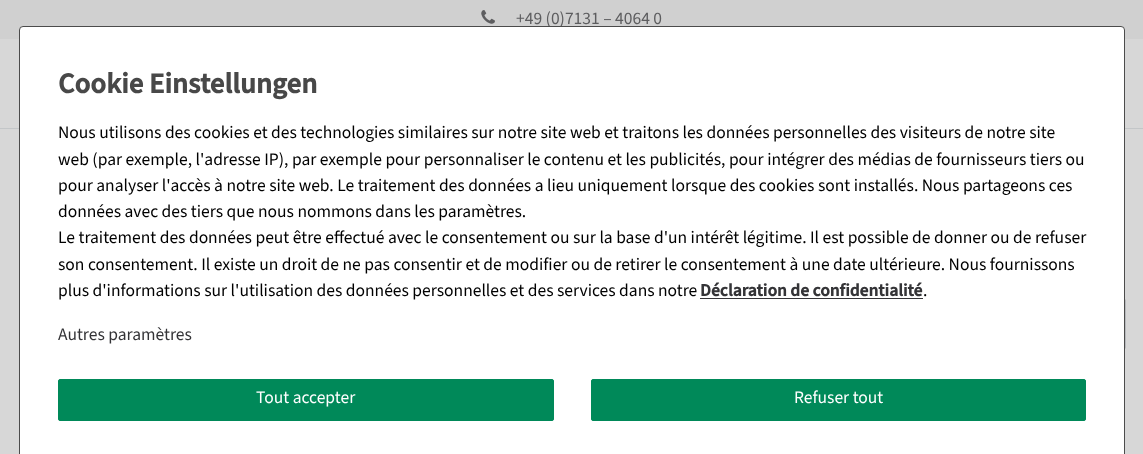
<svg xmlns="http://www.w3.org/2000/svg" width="1143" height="454">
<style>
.a{font:200 17.5px 'Source Sans 3';fill:#5d5d5f}
.b{font:bold 28.75px 'Source Sans 3';fill:#484848}
.c{font:200 17.5px 'Source Sans 3';fill:#000}
.d{font:bold 17.5px 'Source Sans 3';fill:#343437}
.e{font:200 17.5px 'Source Sans 3';fill:#343437}
.f{font:200 17.5px 'Source Sans 3';fill:#fff}
</style>
<rect width="100%" height="100%" fill="#d7d7d7"/>
<path fill="#c3c6c8" d="M0 128h1143v1H0z"/>
<path fill="#d0d0d0" d="M0 0h1143v39H0z"/>
<image href="1.png" x="481" y="10" width="14" height="14"/>
<rect fill="#7f848980" x="1076" y="298" width="50" height="52" rx="4"/>
<rect fill="none" stroke="#c3c6c880" x="1076.5" y="298.5" width="49" height="51" rx="3.5"/>
<text class="a" x="516" y="24">+49 (0)7131 – 4064 0</text>
<rect fill="#fff" stroke="#4b4b4b" x="19.5" y="26.5" width="1105" height="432" rx="3.5"/>
<text class="b" x="58" y="93">Cookie Einstellungen</text>
<text class="c" x="58" y="138">Nous utilisons des cookies et des technologies similaires sur notre site web et traitons les données personnelles des visiteurs de notre site</text>
<text class="c" x="58" y="165">web (par exemple, l'adresse IP), par exemple pour personnaliser le contenu et les publicités, pour intégrer des médias de fournisseurs tiers ou</text>
<text class="c" x="58" y="191">pour analyser l'accès à notre site web. Le traitement des données a lieu uniquement lorsque des cookies sont installés. Nous partageons ces</text>
<text class="c" x="58" y="217">données avec des tiers que nous nommons dans les paramètres.</text>
<text class="c" x="58" y="243">Le traitement des données peut être effectué avec le consentement ou sur la base d'un intérêt légitime. Il est possible de donner ou de refuser</text>
<text class="c" x="58" y="270">son consentement. Il existe un droit de ne pas consentir et de modifier ou de retirer le consentement à une date ultérieure. Nous fournissons</text>
<text class="c" x="58" y="296">plus d'informations sur l'utilisation des données personnelles et des services dans notre</text>
<text class="d" x="700" y="296">Déclaration de confidentialité</text>
<path fill="#343437" d="M700 298h223v1H700z"/>
<text class="c" x="923" y="296">.</text>
<text class="e" x="58" y="340">Autres paramètres</text>
<rect fill="#008959" stroke="#008959" x="58.5" y="379.5" width="495" height="41" rx="1.5"/>
<text class="f" x="256" y="403">Tout accepter</text>
<rect fill="#008959" stroke="#008959" x="591.5" y="379.5" width="494" height="41" rx="1.5"/>
<text class="f" x="794" y="403">Refuser tout</text>
</svg>
